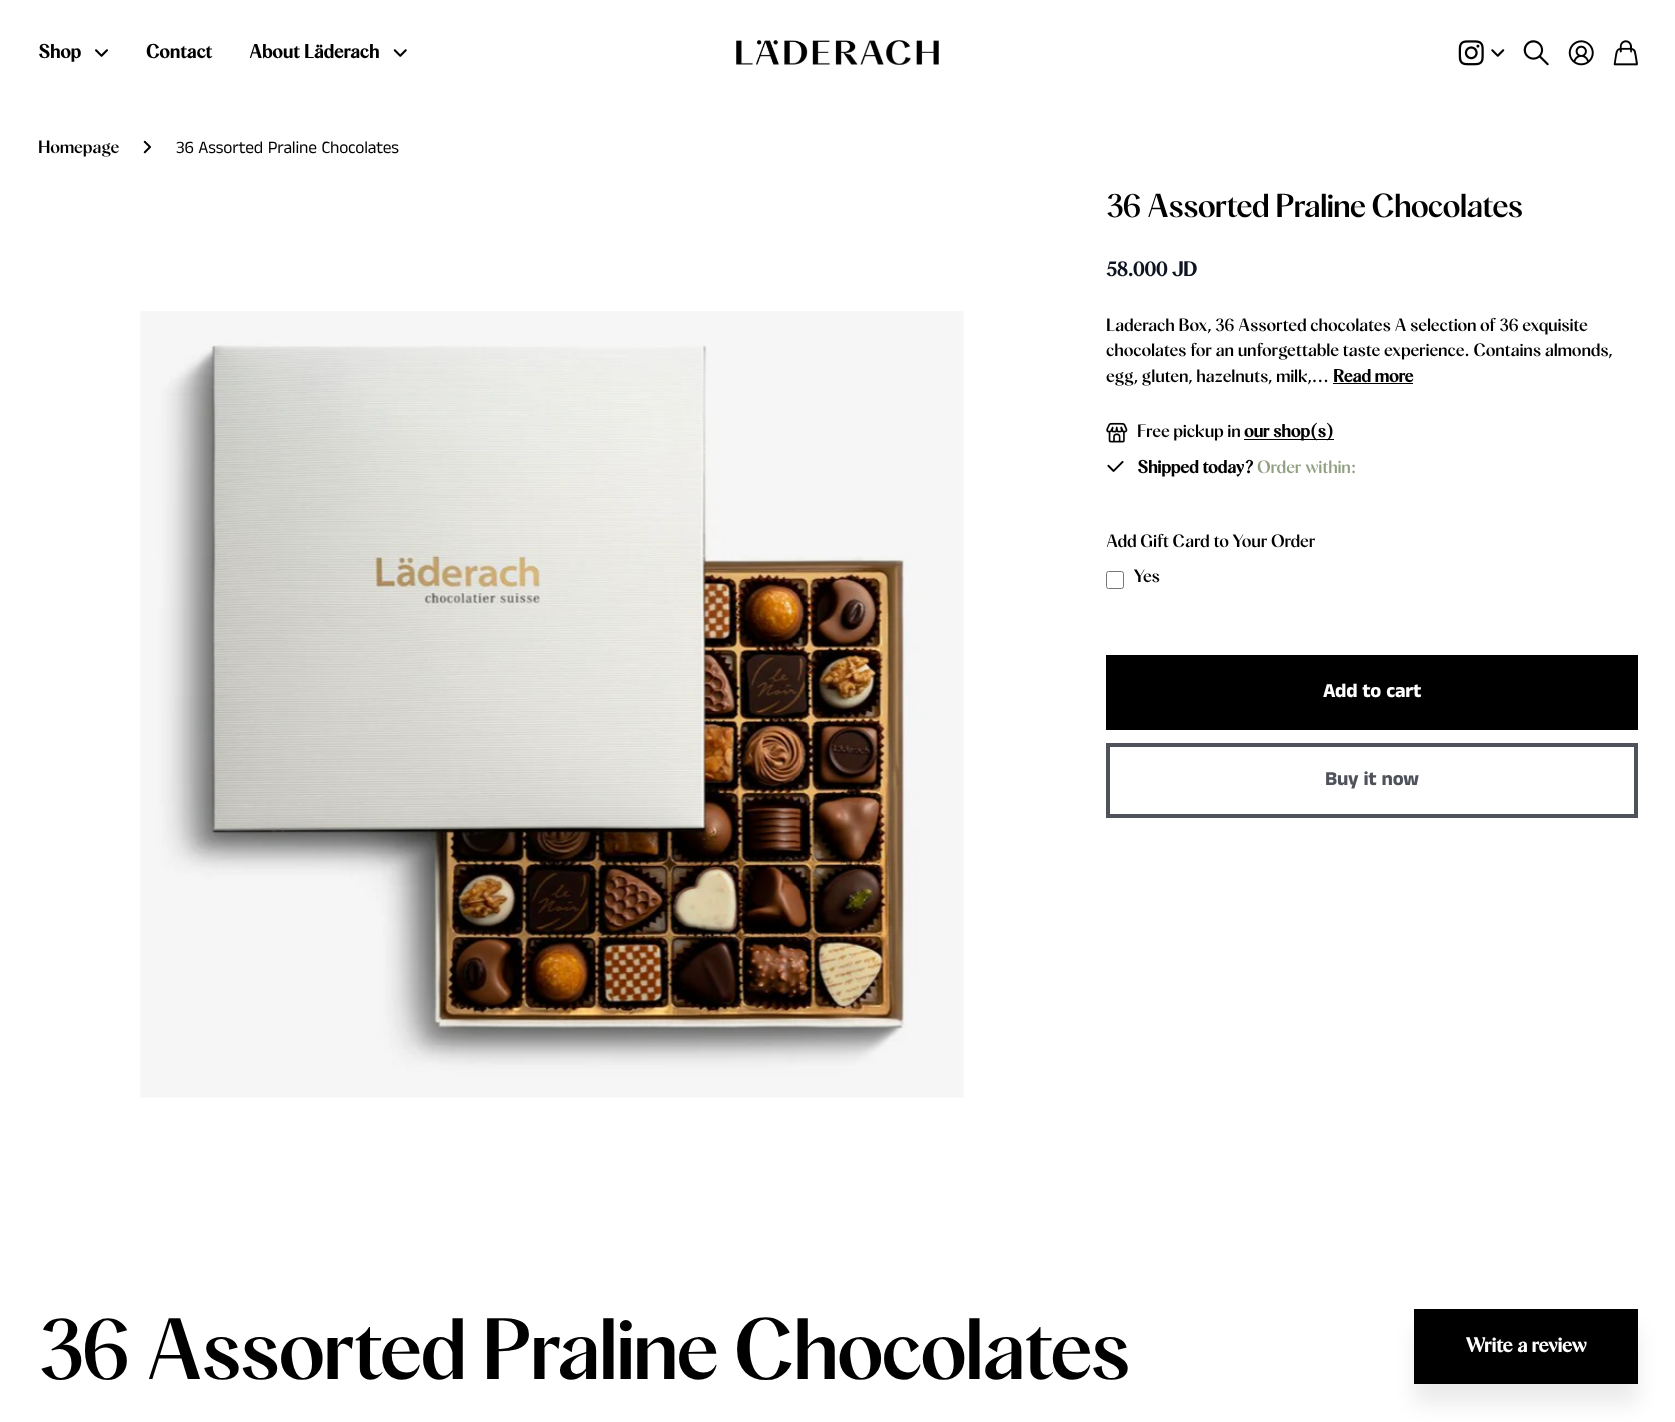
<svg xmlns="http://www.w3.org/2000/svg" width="1675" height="1422">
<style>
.a{font:bold 18.75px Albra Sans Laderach;fill:#000}
.b{font:500 17.5px Albra Sans Laderach;letter-spacing:-0.2px;fill:#000}
.c{font:17.5px Anek Tamil;letter-spacing:-0.2px;fill:#000}
.d{font:500 32.5px Albra Sans Laderach;letter-spacing:-1px;fill:#000}
.e{font:bold 20px Albra Sans Laderach;letter-spacing:-0.2px;fill:#0e1320}
.f{font:bold 17.5px Albra Sans Laderach;letter-spacing:-0.2px;fill:#000}
.g{font:500 17.5px Albra Sans Laderach;letter-spacing:-0.2px;fill:#919f83}
.h{font:bold 20px Anek Tamil;letter-spacing:-0.2px;fill:#fff}
.i{font:bold 20px Anek Tamil;letter-spacing:-0.2px;fill:#4f525b}
.j{font:500 85px Albra Sans Laderach;letter-spacing:-2.55px;fill:#000}
.k{font:bold 20px Albra Sans Laderach;letter-spacing:-0.2px;fill:#fff}
</style>
<rect width="100%" height="100%" fill="#fff"/>
<image href="1.png" x="95" y="49" width="13" height="8"/>
<image href="2.png" x="393" y="49" width="14" height="8"/>
<image href="3.png" x="736" y="40" width="203" height="25"/>
<image href="4.png" x="1458" y="40" width="26" height="26"/>
<image href="5.png" x="1491" y="49" width="14" height="8"/>
<image href="6.png" x="1523" y="40" width="26" height="26"/>
<image href="7.png" x="1568" y="40" width="26" height="26"/>
<image href="8.png" x="1613" y="40" width="25" height="26"/>
<image href="9.png" x="143" y="140" width="8" height="14"/>
<image href="10.png" x="140" y="311" width="824" height="787"/>
<path fill="#000" d="M1333 383h80v1H1333z"/>
<image href="11.png" x="1106" y="422" width="22" height="21"/>
<path fill="#000" d="M1244 439h90v1H1244z"/>
<image href="12.png" x="1107" y="461" width="17" height="11"/>
<rect fill="none" stroke="#767676" x="1106.5" y="571.5" width="17" height="17" rx="2"/>
<path fill="#000" d="M1106 655h532v75H1106z"/>
<path fill="none" stroke="#4f525b" stroke-width="4" d="M1108 745h528v71H1108z"/>
<path fill="#00000014" filter="blur(10px)" d="M1414 1329h224v75H1414z"/>
<path fill="#000" d="M1414 1309h224v75H1414z"/>
<text class="a" x="38" y="58">Shop</text>
<text class="a" x="146" y="58">Contact</text>
<text class="a" x="249" y="58">About Läderach</text>
<text class="b" x="38" y="153">Homepage</text>
<text class="c" x="176" y="153">36 Assorted Praline Chocolates</text>
<text class="d" x="1106" y="217">36 Assorted Praline Chocolates</text>
<text class="e" x="1106" y="276">58.000 JD</text>
<text class="b" x="1106" y="331">Laderach Box, 36 Assorted chocolates A selection of 36 exquisite</text>
<text class="b" x="1106" y="356">chocolates for an unforgettable taste experience. Contains almonds,</text>
<text class="b" x="1106" y="382">egg, gluten, hazelnuts, milk,...</text>
<text class="f" x="1333" y="382">Read more</text>
<text class="b" x="1137" y="437">Free pickup in</text>
<text class="f" x="1244" y="437">our shop(s)</text>
<text class="f" x="1137" y="473">Shipped today?</text>
<text class="g" x="1257" y="473">Order within:</text>
<text class="b" x="1106" y="547">Add Gift Card to Your Order</text>
<text class="b" x="1133" y="582">Yes</text>
<text class="h" x="1323" y="697">Add to cart</text>
<text class="i" x="1325" y="785">Buy it now</text>
<text class="j" x="38" y="1379">36 Assorted Praline Chocolates</text>
<text class="k" x="1465" y="1352">Write a review</text>
</svg>
